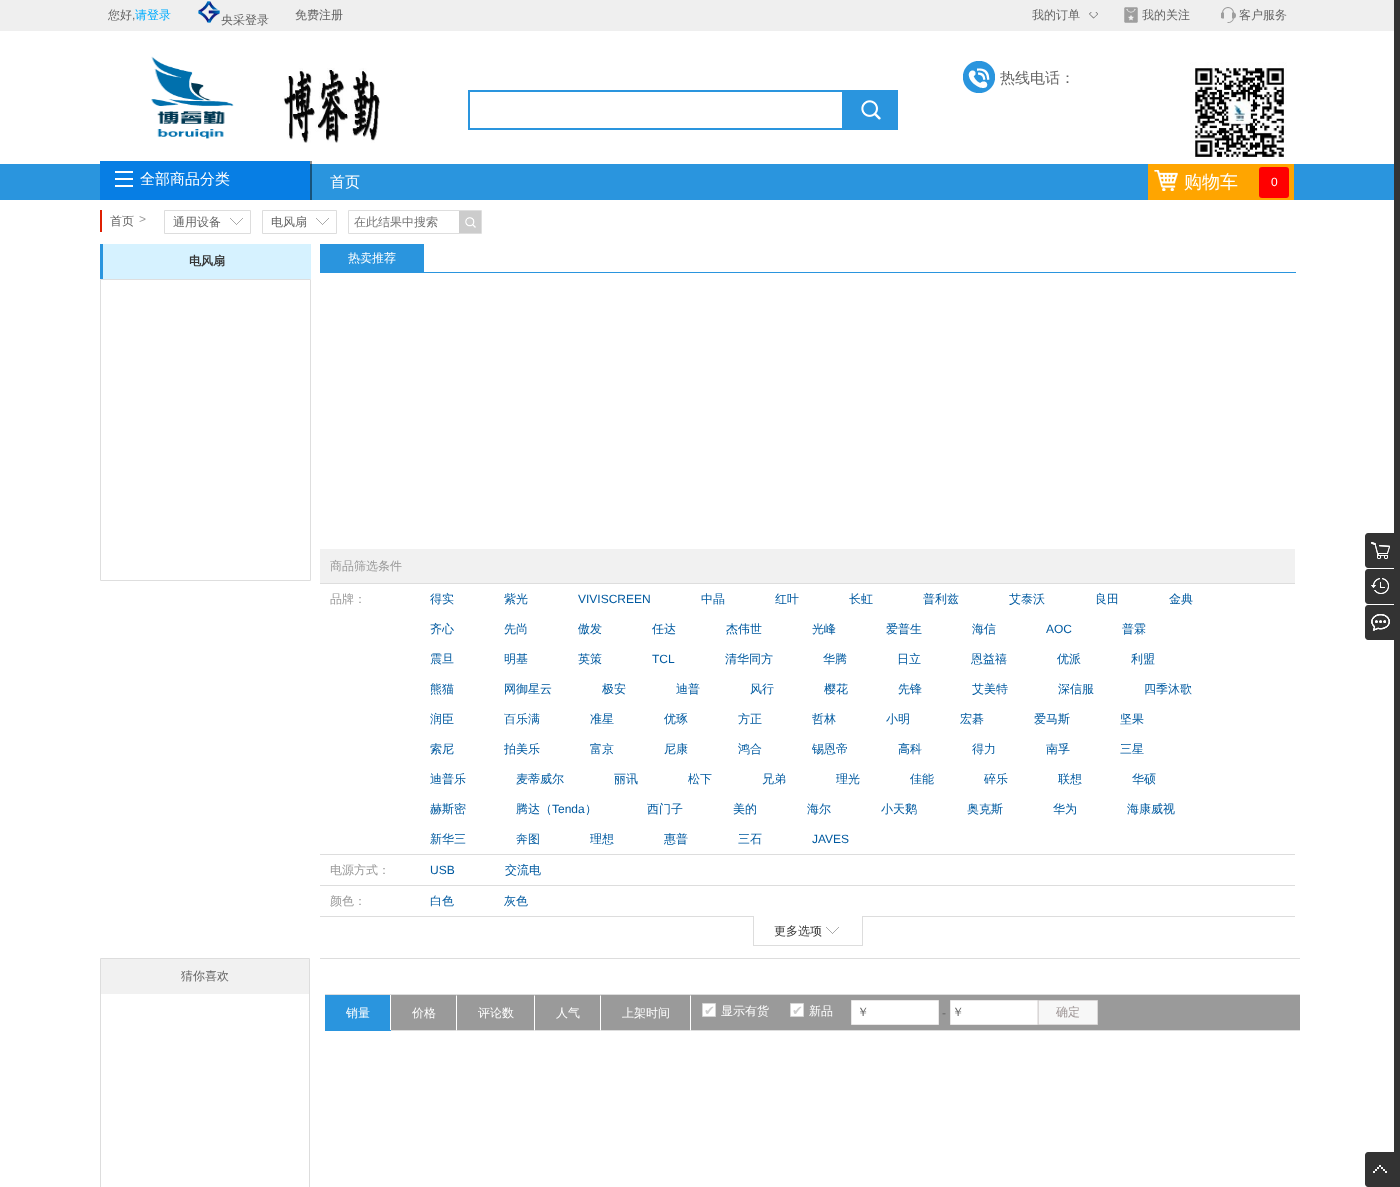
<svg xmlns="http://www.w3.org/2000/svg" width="1400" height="1187">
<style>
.a{font:500 12px WenQuanYi Zen Hei;fill:#646464}
.b{font:12px Liberation Sans;fill:#646464}
.c{font:500 12px WenQuanYi Zen Hei;fill:#00adff}
.d{font:12px DejaVu Sans;fill:#6a6a6a}
.e{font:500 15px WenQuanYi Zen Hei;fill:#646464}
.f{font:500 15px WenQuanYi Zen Hei;fill:#fff}
.g{font:500 18px WenQuanYi Zen Hei;fill:#fff}
.h{font:12px Liberation Sans;fill:#fff}
.i{font:12px Liberation Sans;fill:#999}
.j{font:500 12px WenQuanYi Zen Hei;fill:#757575}
.k{font:bold 12px WenQuanYi Zen Hei;fill:#363636}
.l{font:500 12px WenQuanYi Zen Hei;fill:#fff}
.m{font:500 12px WenQuanYi Zen Hei;fill:#999}
.n{font:500 12px WenQuanYi Zen Hei;fill:#005aa0}
.o{font:12px Liberation Sans;fill:#005aa0}
.p{font:500 12px WenQuanYi Zen Hei;fill:#363636}
.q{font:13px DejaVu Sans;fill:#ccc}
.r{font:500 12px WenQuanYi Zen Hei;fill:#9f9696}
</style>
<defs>
<clipPath id="clip1"><path d="M1089 12h9v7H1089z"/></clipPath>
</defs>
<rect width="100%" height="100%" fill="#fff"/>
<path fill="#8c8c8c" d="M310 161h2v3H310z"/>
<path fill="#9a9a9a" d="M391 995h909v35H391z"/>
<path fill="#efefef" d="M0 0h1394v31H0z"/>
<image href="1.png" x="198" y="1" width="22" height="22"/>
<image href="2.png" x="1124" y="7" width="14" height="16"/>
<image href="3.png" x="1221" y="7" width="15" height="16"/>
<path fill="#333" d="M1394 0h6v1152H1394z"/>
<path fill="#333" d="M1368 533h32v35h-32c-1.5 0-3-1.5-3-3v-29c0-1.5 1.5-3 3-3z"/>
<image href="4.png" x="1371" y="542" width="19" height="17"/>
<path fill="#333" d="M1368 569h32v35h-32c-1.5 0-3-1.5-3-3v-29c0-1.5 1.5-3 3-3z"/>
<image href="5.png" x="1371" y="578" width="18" height="16"/>
<path fill="#333" d="M1368 605h32v35h-32c-1.5 0-3-1.5-3-3v-29c0-1.5 1.5-3 3-3z"/>
<image href="6.png" x="1371" y="614" width="19" height="17"/>
<path fill="#333" d="M1368 1152h32v35h-32c-1.5 0-3-1.5-3-3v-29c0-1.5 1.5-3 3-3z"/>
<image href="7.png" x="1373" y="1165" width="14" height="8"/>
<image href="8.png" x="151" y="56" width="83" height="83"/>
<image href="9.png" x="283" y="68" width="97" height="75"/>
<image href="10.png" x="963" y="61" width="32" height="32"/>
<image href="11.png" x="1190" y="62" width="97" height="97"/>
<path fill="none" stroke="#2a95de" stroke-width="2" d="M469 91h428v38H469z"/>
<path fill="#2a95de" d="M842 92h54v36H842z"/>
<image href="12.png" x="861" y="100" width="20" height="20"/>
<path fill="#2a95de" d="M0 164h1394v36H0z"/>
<path fill="#17527a" d="M310 164h2v36H310z"/>
<path fill="#077ee4" d="M100 161h210v39H100z"/>
<image href="13.png" x="115" y="171" width="18" height="16"/>
<path fill="#ffa500" d="M1148 164h146v36H1148z"/>
<image href="14.png" x="1154" y="170" width="24" height="21"/>
<rect fill="#f00" x="1259" y="167" width="30" height="31" rx="3"/>
<path fill="#df2003" d="M100 210h2v22H100z"/>
<path fill="none" stroke="#ddd" d="M164.5 210.5h86v23H164.5z"/>
<image href="15.png" x="230" y="218" width="13" height="7"/>
<path fill="none" stroke="#ddd" d="M262.5 210.5h74v23H262.5z"/>
<image href="15.png" x="316" y="218" width="13" height="7"/>
<path fill="none" stroke="#dedede" d="M348.5 210.5h133v23H348.5z"/>
<path fill="#ccc" d="M459 211h22v22H459z"/>
<image href="16.png" x="465" y="217" width="11" height="11"/>
<path fill="#d6f2ff" d="M103 244h208v35H103z"/>
<path fill="#2a95de" d="M100 244h3v35H100z"/>
<path fill="none" stroke="#dedede" d="M100.5 279.5h210v301H100.5z"/>
<path fill="#2a95de" d="M320 272h976v1H320z"/>
<path fill="#2a95de" d="M320 244h104v28H320z"/>
<path fill="#f1f1f1" d="M320 549h975v34H320z"/>
<path fill="#ddd" d="M320 583h975v1H320z"/>
<path fill="#ddd" d="M320 854h975v1H320z"/>
<path fill="#ddd" d="M320 885h975v1H320z"/>
<path fill="#ddd" d="M320 916h975v1H320z"/>
<path fill="#fff" d="M754 916h108v1H754z"/>
<path fill="#ddd" d="M862 916h1v30H862z"/>
<path fill="#ddd" d="M753 945h110v1H753z"/>
<path fill="#ddd" d="M753 916h1v30H753z"/>
<image href="15.png" x="826" y="927" width="13" height="7"/>
<path fill="none" stroke="#ddd" d="M100.5 958.5h209v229H100.5z"/>
<path fill="#f1f1f1" d="M101 959h208v35H101z"/>
<path fill="#ddd" d="M320 958h980v1H320z"/>
<path fill="#ddd" d="M325 994h975v1H325z"/>
<path fill="#ddd" d="M391 1030h909v1H391z"/>
<path fill="#2a95de" d="M325 995h65v35H325z"/>
<path fill="#2a95de" d="M325 1030h66v1H325z"/>
<path fill="#fff" d="M457 995v36l-1-1v-34z"/>
<path fill="#fff" d="M535 995v36l-1-1v-34z"/>
<path fill="#fff" d="M601 995v36l-1-1v-34z"/>
<path fill="#fff" d="M691 995v36l-1-1v-34z"/>
<path fill="#fff" stroke="#d5d5d5" d="M702.5 1003.5h13v13H702.5z"/>
<path fill="#fff" stroke="#d5d5d5" d="M790.5 1003.5h13v13H790.5z"/>
<path fill="#fff" stroke="#e9e7e7" d="M851.5 1000.5h87v24H851.5z"/>
<path fill="#fff" stroke="#e9e7e7" d="M950.5 1000.5h87v24H950.5z"/>
<path fill="#f7f7f7" stroke="#dad7d7" d="M1038.5 1000.5h59v24H1038.5z"/>
<text class="a" x="108" y="19">您好</text>
<text class="b" x="132" y="19">,</text>
<text class="c" x="135" y="19">请登录</text>
<text class="a" x="221" y="24">央采登录</text>
<text class="a" x="295" y="19">免费注册</text>
<text class="a" x="1032" y="19">我的订单</text>
<g clip-path="url(#clip1)">
<text class="d" x="1089" y="17">◇</text>
</g>
<text class="a" x="1142" y="19">我的关注</text>
<text class="a" x="1239" y="19">客户服务</text>
<text class="e" x="1000" y="83">热线电话：</text>
<text class="f" x="140" y="184">全部商品分类</text>
<text class="f" x="330" y="187">首页</text>
<text class="g" x="1184" y="188">购物车</text>
<text class="h" x="1271" y="186">0</text>
<text class="a" x="110" y="225">首页</text>
<text class="i" x="139" y="223">&gt;</text>
<text class="a" x="173" y="226">通用设备</text>
<text class="a" x="271" y="226">电风扇</text>
<text class="j" x="354" y="226">在此结果中搜索</text>
<text class="k" x="189" y="265">电风扇</text>
<text class="l" x="348" y="262">热卖推荐</text>
<text class="m" x="330" y="570">商品筛选条件</text>
<text class="m" x="330" y="603">品牌：</text>
<text class="n" x="430" y="603">得实</text>
<text class="n" x="504" y="603">紫光</text>
<text class="o" x="578" y="603">VIVISCREEN</text>
<text class="n" x="701" y="603">中晶</text>
<text class="n" x="775" y="603">红叶</text>
<text class="n" x="849" y="603">长虹</text>
<text class="n" x="923" y="603">普利兹</text>
<text class="n" x="1009" y="603">艾泰沃</text>
<text class="n" x="1095" y="603">良田</text>
<text class="n" x="1169" y="603">金典</text>
<text class="n" x="430" y="633">齐心</text>
<text class="n" x="504" y="633">先尚</text>
<text class="n" x="578" y="633">傲发</text>
<text class="n" x="652" y="633">任达</text>
<text class="n" x="726" y="633">杰伟世</text>
<text class="n" x="812" y="633">光峰</text>
<text class="n" x="886" y="633">爱普生</text>
<text class="n" x="972" y="633">海信</text>
<text class="o" x="1046" y="633">AOC</text>
<text class="n" x="1122" y="633">普霖</text>
<text class="n" x="430" y="663">震旦</text>
<text class="n" x="504" y="663">明基</text>
<text class="n" x="578" y="663">英策</text>
<text class="o" x="652" y="663">TCL</text>
<text class="n" x="725" y="663">清华同方</text>
<text class="n" x="823" y="663">华腾</text>
<text class="n" x="897" y="663">日立</text>
<text class="n" x="971" y="663">恩益禧</text>
<text class="n" x="1057" y="663">优派</text>
<text class="n" x="1131" y="663">利盟</text>
<text class="n" x="430" y="693">熊猫</text>
<text class="n" x="504" y="693">网御星云</text>
<text class="n" x="602" y="693">极安</text>
<text class="n" x="676" y="693">迪普</text>
<text class="n" x="750" y="693">风行</text>
<text class="n" x="824" y="693">樱花</text>
<text class="n" x="898" y="693">先锋</text>
<text class="n" x="972" y="693">艾美特</text>
<text class="n" x="1058" y="693">深信服</text>
<text class="n" x="1144" y="693">四季沐歌</text>
<text class="n" x="430" y="723">润臣</text>
<text class="n" x="504" y="723">百乐满</text>
<text class="n" x="590" y="723">准星</text>
<text class="n" x="664" y="723">优琢</text>
<text class="n" x="738" y="723">方正</text>
<text class="n" x="812" y="723">哲林</text>
<text class="n" x="886" y="723">小明</text>
<text class="n" x="960" y="723">宏碁</text>
<text class="n" x="1034" y="723">爱马斯</text>
<text class="n" x="1120" y="723">坚果</text>
<text class="n" x="430" y="753">索尼</text>
<text class="n" x="504" y="753">拍美乐</text>
<text class="n" x="590" y="753">富京</text>
<text class="n" x="664" y="753">尼康</text>
<text class="n" x="738" y="753">鸿合</text>
<text class="n" x="812" y="753">锡恩帝</text>
<text class="n" x="898" y="753">高科</text>
<text class="n" x="972" y="753">得力</text>
<text class="n" x="1046" y="753">南孚</text>
<text class="n" x="1120" y="753">三星</text>
<text class="n" x="430" y="783">迪普乐</text>
<text class="n" x="516" y="783">麦蒂威尔</text>
<text class="n" x="614" y="783">丽讯</text>
<text class="n" x="688" y="783">松下</text>
<text class="n" x="762" y="783">兄弟</text>
<text class="n" x="836" y="783">理光</text>
<text class="n" x="910" y="783">佳能</text>
<text class="n" x="984" y="783">碎乐</text>
<text class="n" x="1058" y="783">联想</text>
<text class="n" x="1132" y="783">华硕</text>
<text class="n" x="430" y="813">赫斯密</text>
<text class="n" x="516" y="813">腾达（</text>
<text class="o" x="552" y="813">Tenda</text>
<text class="n" x="585" y="813">）</text>
<text class="n" x="647" y="813">西门子</text>
<text class="n" x="733" y="813">美的</text>
<text class="n" x="807" y="813">海尔</text>
<text class="n" x="881" y="813">小天鹅</text>
<text class="n" x="967" y="813">奥克斯</text>
<text class="n" x="1053" y="813">华为</text>
<text class="n" x="1127" y="813">海康威视</text>
<text class="n" x="430" y="843">新华三</text>
<text class="n" x="516" y="843">奔图</text>
<text class="n" x="590" y="843">理想</text>
<text class="n" x="664" y="843">惠普</text>
<text class="n" x="738" y="843">三石</text>
<text class="o" x="812" y="843">JAVES</text>
<text class="m" x="330" y="874">电源方式：</text>
<text class="o" x="430" y="874">USB</text>
<text class="n" x="505" y="874">交流电</text>
<text class="m" x="330" y="905">颜色：</text>
<text class="n" x="430" y="905">白色</text>
<text class="n" x="504" y="905">灰色</text>
<text class="p" x="774" y="935">更多选项</text>
<text class="a" x="181" y="980">猜你喜欢</text>
<text class="l" x="346" y="1017">销量</text>
<text class="l" x="412" y="1017">价格</text>
<text class="l" x="478" y="1017">评论数</text>
<text class="l" x="556" y="1017">人气</text>
<text class="l" x="622" y="1017">上架时间</text>
<text class="q" x="704" y="1015">✔</text>
<text class="l" x="721" y="1015">显示有货</text>
<text class="q" x="792" y="1015">✔</text>
<text class="l" x="809" y="1015">新品</text>
<text class="a" x="857" y="1016">￥</text>
<text class="b" x="942" y="1017">-</text>
<text class="a" x="952" y="1016">￥</text>
<text class="r" x="1056" y="1016">确定</text>
</svg>
